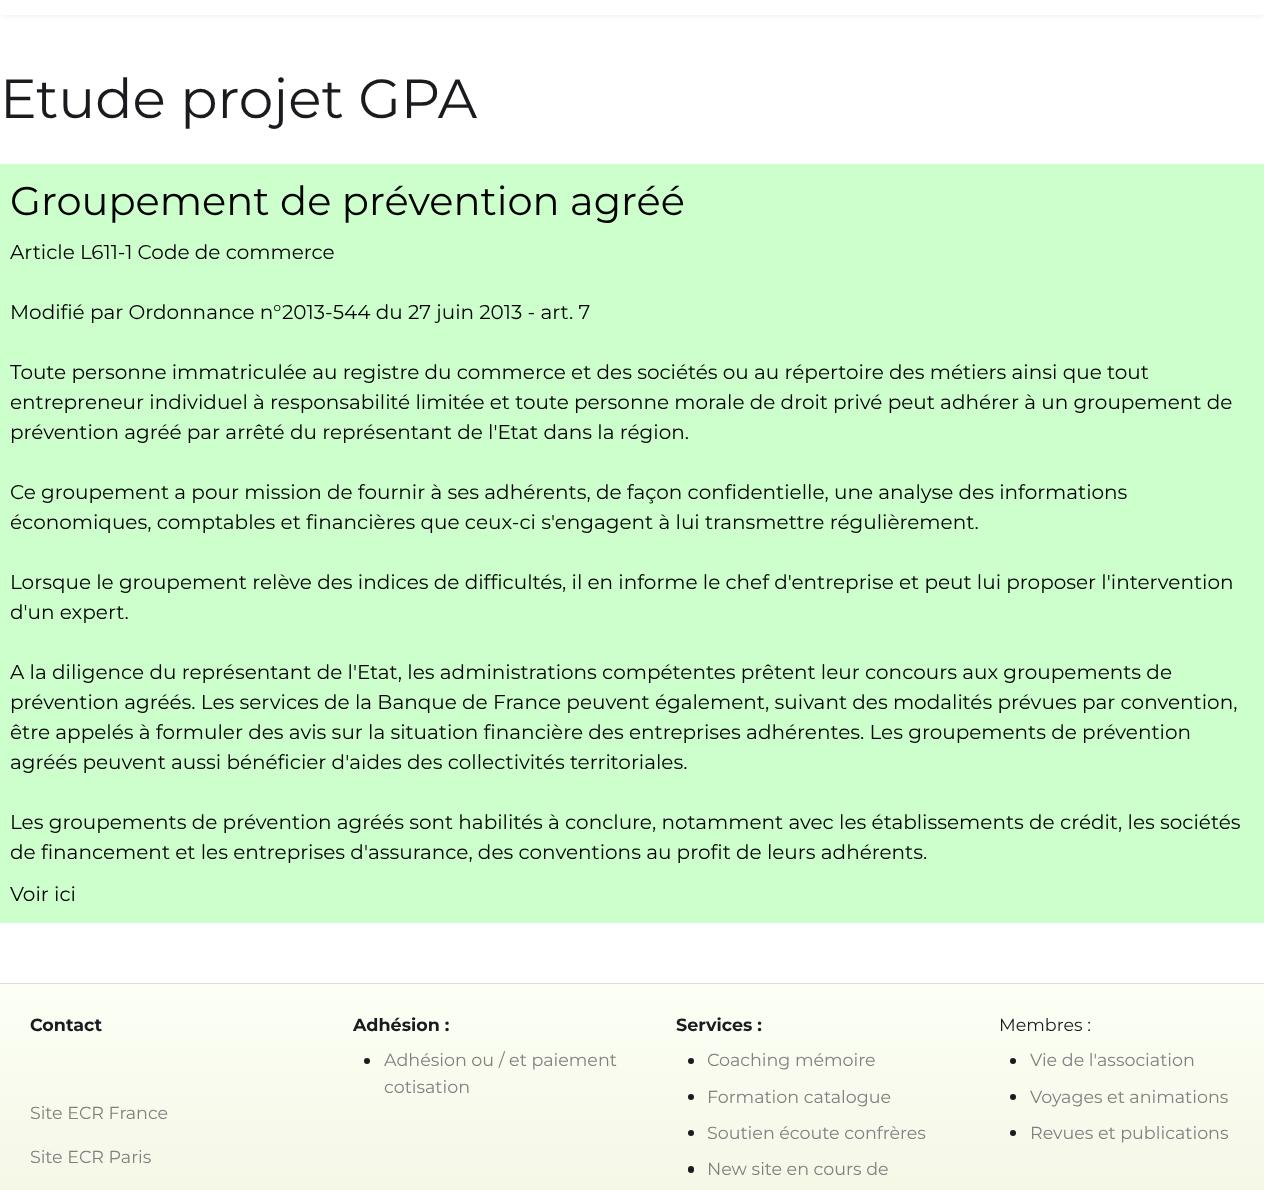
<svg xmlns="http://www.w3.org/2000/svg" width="1264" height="1190">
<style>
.a{font:55px Montserrat;fill:#1a1b1f}
.b{font:40px Montserrat;fill:#000}
.c{font:20px Montserrat;fill:#000}
.d{font:bold 17.5px Montserrat;fill:#1a1b1f}
.e{font:17.5px Montserrat;fill:#808080}
.f{font:17.5px Montserrat;fill:#1a1b1f}
</style>
<defs>
<clipPath id="clip1"><path d="M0 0h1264v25h-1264zm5-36h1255c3 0 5 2 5 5v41c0 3-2 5-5 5h-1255c-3 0-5-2-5-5v-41c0-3 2-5 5-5z" clip-rule="evenodd"/></clipPath>
<linearGradient id="g1" gradientUnits="userSpaceOnUse" x1="653" y1="984" x2="653" y2="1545"><stop offset="0" stop-color="#fcfff5"/><stop offset="1" stop-color="#e9e9ce"/></linearGradient>
</defs>
<rect width="100%" height="100%" fill="#fff"/>
<g clip-path="url(#clip1)">
<rect fill="#00000012" filter="blur(2.5px)" y="-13" width="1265" height="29" rx="5"/>
</g>
<path fill="#cfc" d="M0 164h1264v759H0z"/>
<path fill="#dedede" d="M0 983h1264v1H0z"/>
<path fill="url(#g1)" d="M0 984h1264v206H0z"/>
<circle fill="#1a1b1f" cx="367" cy="1061" r="3"/>
<circle fill="#1a1b1f" cx="691" cy="1061" r="3"/>
<circle fill="#1a1b1f" cx="691" cy="1097" r="3"/>
<circle fill="#1a1b1f" cx="691" cy="1133" r="3"/>
<rect fill="#1a1b1f" x="688" y="1166" width="6" height="7" rx="3"/>
<circle fill="#1a1b1f" cx="1013" cy="1061" r="3"/>
<circle fill="#1a1b1f" cx="1013" cy="1097" r="3"/>
<circle fill="#1a1b1f" cx="1013" cy="1133" r="3"/>
<text class="a" x="0" y="118">Etude projet GPA</text>
<text class="b" x="10" y="215">Groupement de prévention agréé</text>
<text class="c" x="10" y="259">Article L611-1 Code de commerce</text>
<text class="c" x="10" y="319">Modifié par Ordonnance n°2013-544 du 27 juin 2013 - art. 7</text>
<text class="c" x="10" y="379">Toute personne immatriculée au registre du commerce et des sociétés ou au répertoire des métiers ainsi que tout</text>
<text class="c" x="10" y="409">entrepreneur individuel à responsabilité limitée et toute personne morale de droit privé peut adhérer à un groupement de</text>
<text class="c" x="10" y="439">prévention agréé par arrêté du représentant de l'Etat dans la région.</text>
<text class="c" x="10" y="499">Ce groupement a pour mission de fournir à ses adhérents, de façon confidentielle, une analyse des informations</text>
<text class="c" x="10" y="529">économiques, comptables et financières que ceux-ci s'engagent à lui transmettre régulièrement.</text>
<text class="c" x="10" y="589">Lorsque le groupement relève des indices de difficultés, il en informe le chef d'entreprise et peut lui proposer l'intervention</text>
<text class="c" x="10" y="619">d'un expert.</text>
<text class="c" x="10" y="679">A la diligence du représentant de l'Etat, les administrations compétentes prêtent leur concours aux groupements de</text>
<text class="c" x="10" y="709">prévention agréés. Les services de la Banque de France peuvent également, suivant des modalités prévues par convention,</text>
<text class="c" x="10" y="739">être appelés à formuler des avis sur la situation financière des entreprises adhérentes. Les groupements de prévention</text>
<text class="c" x="10" y="769">agréés peuvent aussi bénéficier d'aides des collectivités territoriales.</text>
<text class="c" x="10" y="829">Les groupements de prévention agréés sont habilités à conclure, notamment avec les établissements de crédit, les sociétés</text>
<text class="c" x="10" y="859">de financement et les entreprises d'assurance, des conventions au profit de leurs adhérents.</text>
<text class="c" x="10" y="901">Voir ici</text>
<text class="d" x="30" y="1031">Contact</text>
<text class="e" x="30" y="1119">Site ECR France</text>
<text class="e" x="30" y="1163">Site ECR Paris</text>
<text class="d" x="353" y="1031">Adhésion :</text>
<text class="e" x="384" y="1066">Adhésion ou / et paiement</text>
<text class="e" x="384" y="1093">cotisation</text>
<text class="d" x="676" y="1031">Services :</text>
<text class="e" x="707" y="1066">Coaching mémoire</text>
<text class="e" x="707" y="1103">Formation catalogue</text>
<text class="e" x="707" y="1139">Soutien écoute confrères</text>
<text class="e" x="707" y="1175">New site en cours de</text>
<text class="f" x="999" y="1031">Membres :</text>
<text class="e" x="1030" y="1066">Vie de l'association</text>
<text class="e" x="1030" y="1103">Voyages et animations</text>
<text class="e" x="1030" y="1139">Revues et publications</text>
</svg>
